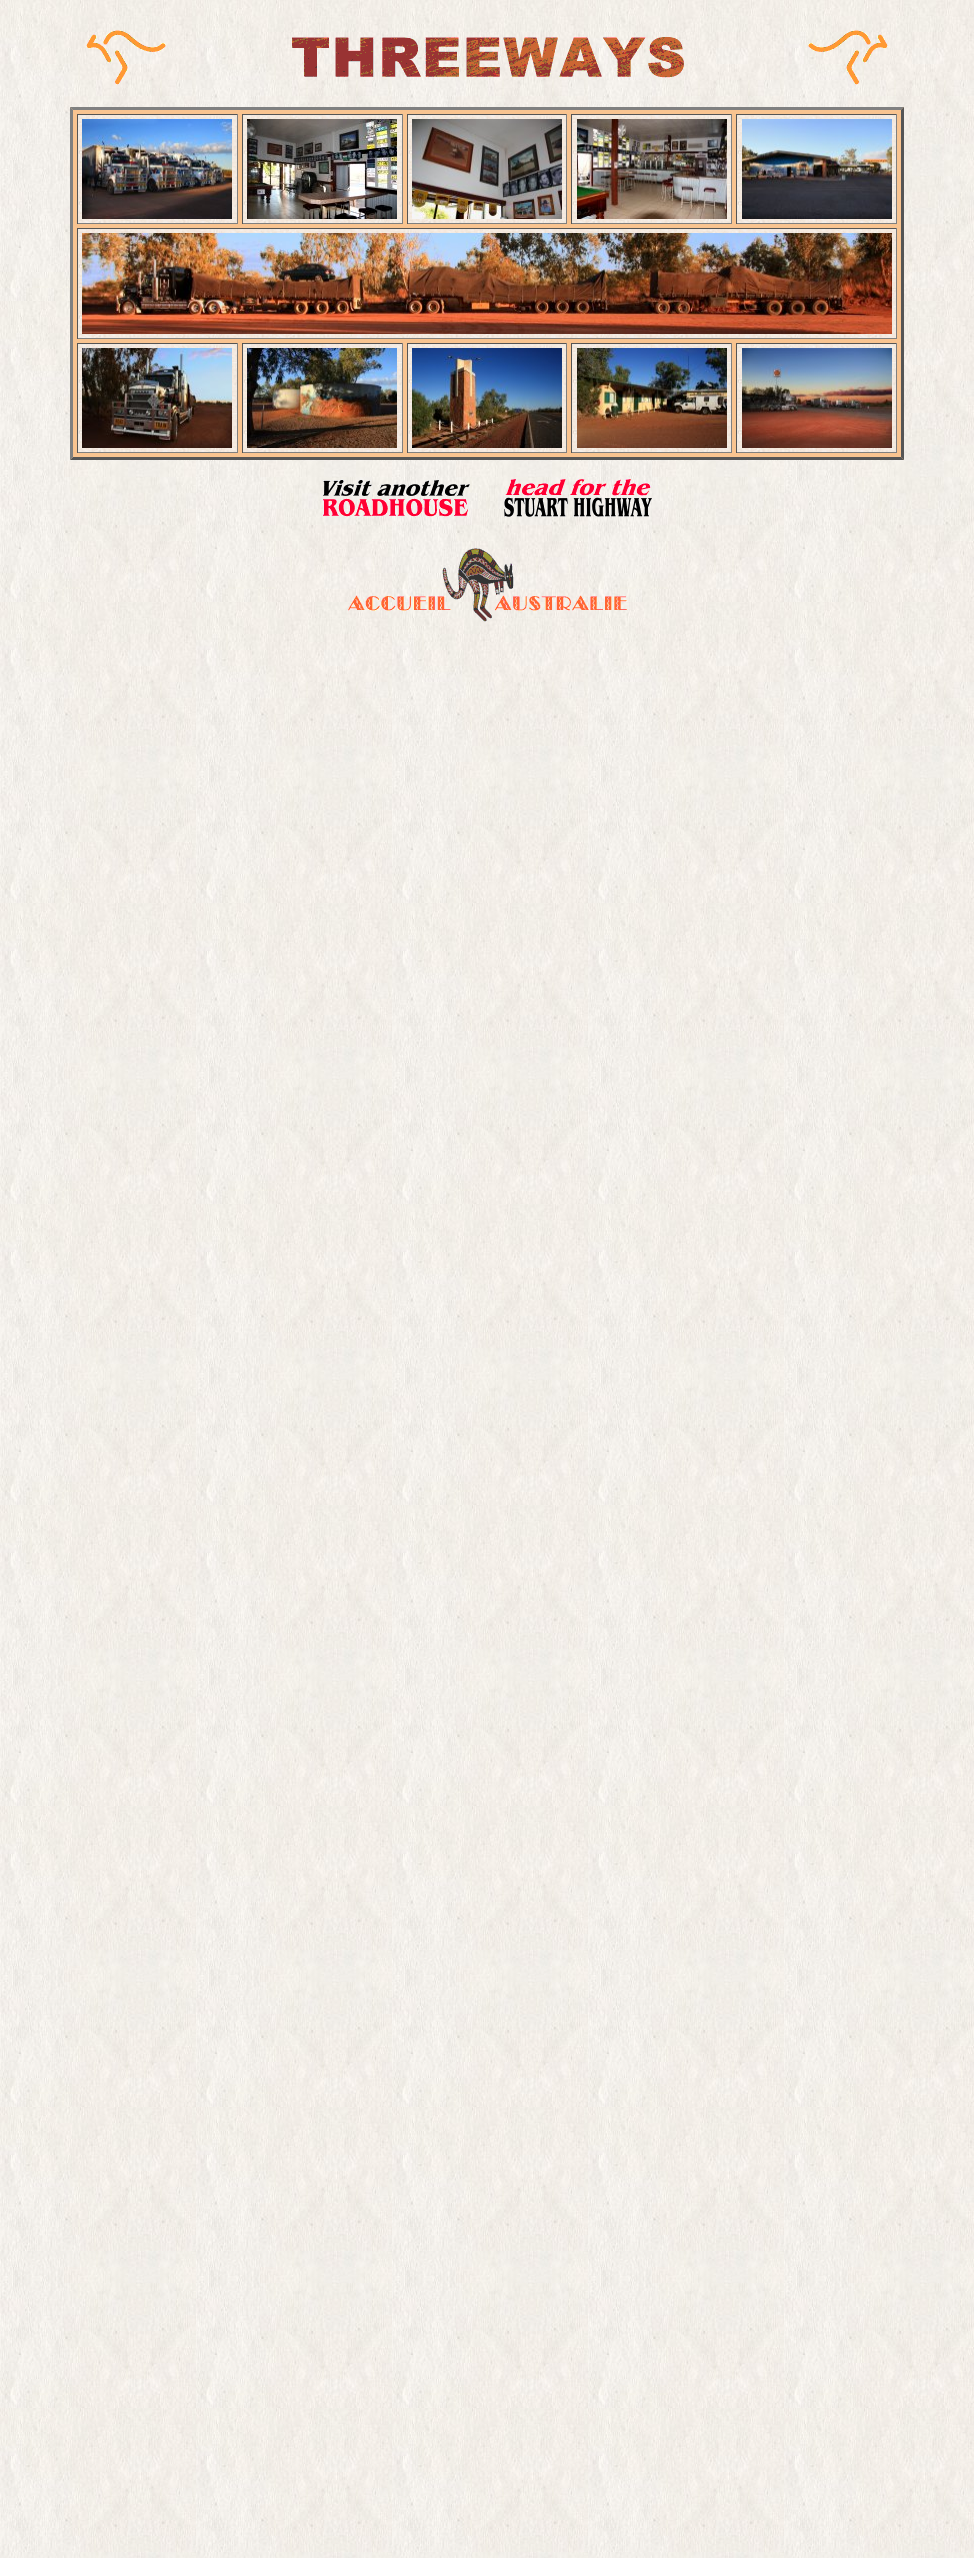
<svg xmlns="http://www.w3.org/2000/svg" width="974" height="2558">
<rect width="100%" height="100%" fill="#fff"/>
<image href="1.png" x="0" y="0" width="974" height="2558"/>
<image href="2.png" x="86" y="30" width="80" height="55"/>
<image href="3.png" x="292" y="37" width="392" height="41"/>
<image href="4.png" x="808" y="30" width="80" height="55"/>
<path fill="#f9c490" d="M70 107h834v353H70z"/>
<path fill="#808080" d="M70 107h834l-3 3h-828z"/>
<path fill="#555" d="M904 107v353l-3-3v-347z"/>
<path fill="#555" d="M904 460h-834l3-3h828z"/>
<path fill="#808080" d="M70 460v-353l3 3v347z"/>
<image href="5.png" x="78" y="115" width="159" height="108"/>
<path fill="#555" d="M77 114h161v1H77z"/>
<path fill="#808080" d="M237 114h1v110H237z"/>
<path fill="#808080" d="M77 223h161v1H77z"/>
<path fill="#555" d="M77 114h1v110H77z"/>
<image href="6.png" x="82" y="119" width="150" height="100"/>
<image href="5.png" x="243" y="115" width="159" height="108"/>
<path fill="#555" d="M242 114h161v1H242z"/>
<path fill="#808080" d="M402 114h1v110H402z"/>
<path fill="#808080" d="M242 223h161v1H242z"/>
<path fill="#555" d="M242 114h1v110H242z"/>
<image href="7.png" x="247" y="119" width="150" height="100"/>
<image href="8.png" x="408" y="115" width="158" height="108"/>
<path fill="#555" d="M407 114h160v1H407z"/>
<path fill="#808080" d="M566 114h1v110H566z"/>
<path fill="#808080" d="M407 223h160v1H407z"/>
<path fill="#555" d="M407 114h1v110H407z"/>
<image href="9.png" x="412" y="119" width="150" height="100"/>
<image href="5.png" x="572" y="115" width="159" height="108"/>
<path fill="#555" d="M571 114h161v1H571z"/>
<path fill="#808080" d="M731 114h1v110H731z"/>
<path fill="#808080" d="M571 223h161v1H571z"/>
<path fill="#555" d="M571 114h1v110H571z"/>
<image href="10.png" x="577" y="119" width="150" height="100"/>
<image href="5.png" x="737" y="115" width="159" height="108"/>
<path fill="#555" d="M736 114h161v1H736z"/>
<path fill="#808080" d="M896 114h1v110H896z"/>
<path fill="#808080" d="M736 223h161v1H736z"/>
<path fill="#555" d="M736 114h1v110H736z"/>
<image href="11.png" x="742" y="119" width="150" height="100"/>
<image href="12.png" x="78" y="229" width="818" height="109"/>
<path fill="#555" d="M77 228h820v1H77z"/>
<path fill="#808080" d="M896 228h1v111H896z"/>
<path fill="#808080" d="M77 338h820v1H77z"/>
<path fill="#555" d="M77 228h1v111H77z"/>
<image href="13.png" x="82" y="233" width="810" height="101"/>
<image href="5.png" x="78" y="344" width="159" height="108"/>
<path fill="#555" d="M77 343h161v1H77z"/>
<path fill="#808080" d="M237 343h1v110H237z"/>
<path fill="#808080" d="M77 452h161v1H77z"/>
<path fill="#555" d="M77 343h1v110H77z"/>
<image href="14.png" x="82" y="348" width="150" height="100"/>
<image href="5.png" x="243" y="344" width="159" height="108"/>
<path fill="#555" d="M242 343h161v1H242z"/>
<path fill="#808080" d="M402 343h1v110H402z"/>
<path fill="#808080" d="M242 452h161v1H242z"/>
<path fill="#555" d="M242 343h1v110H242z"/>
<image href="15.png" x="247" y="348" width="150" height="100"/>
<image href="8.png" x="408" y="344" width="158" height="108"/>
<path fill="#555" d="M407 343h160v1H407z"/>
<path fill="#808080" d="M566 343h1v110H566z"/>
<path fill="#808080" d="M407 452h160v1H407z"/>
<path fill="#555" d="M407 343h1v110H407z"/>
<image href="16.png" x="412" y="348" width="150" height="100"/>
<image href="5.png" x="572" y="344" width="159" height="108"/>
<path fill="#555" d="M571 343h161v1H571z"/>
<path fill="#808080" d="M731 343h1v110H731z"/>
<path fill="#808080" d="M571 452h161v1H571z"/>
<path fill="#555" d="M571 343h1v110H571z"/>
<image href="17.png" x="577" y="348" width="150" height="100"/>
<image href="5.png" x="737" y="344" width="159" height="108"/>
<path fill="#555" d="M736 343h161v1H736z"/>
<path fill="#808080" d="M896 343h1v110H896z"/>
<path fill="#808080" d="M736 452h161v1H736z"/>
<path fill="#555" d="M736 343h1v110H736z"/>
<image href="18.png" x="742" y="348" width="150" height="100"/>
<image href="19.png" x="322" y="479" width="148" height="38"/>
<image href="20.png" x="504" y="479" width="148" height="38"/>
<image href="21.png" x="348" y="548" width="279" height="74"/>
</svg>
